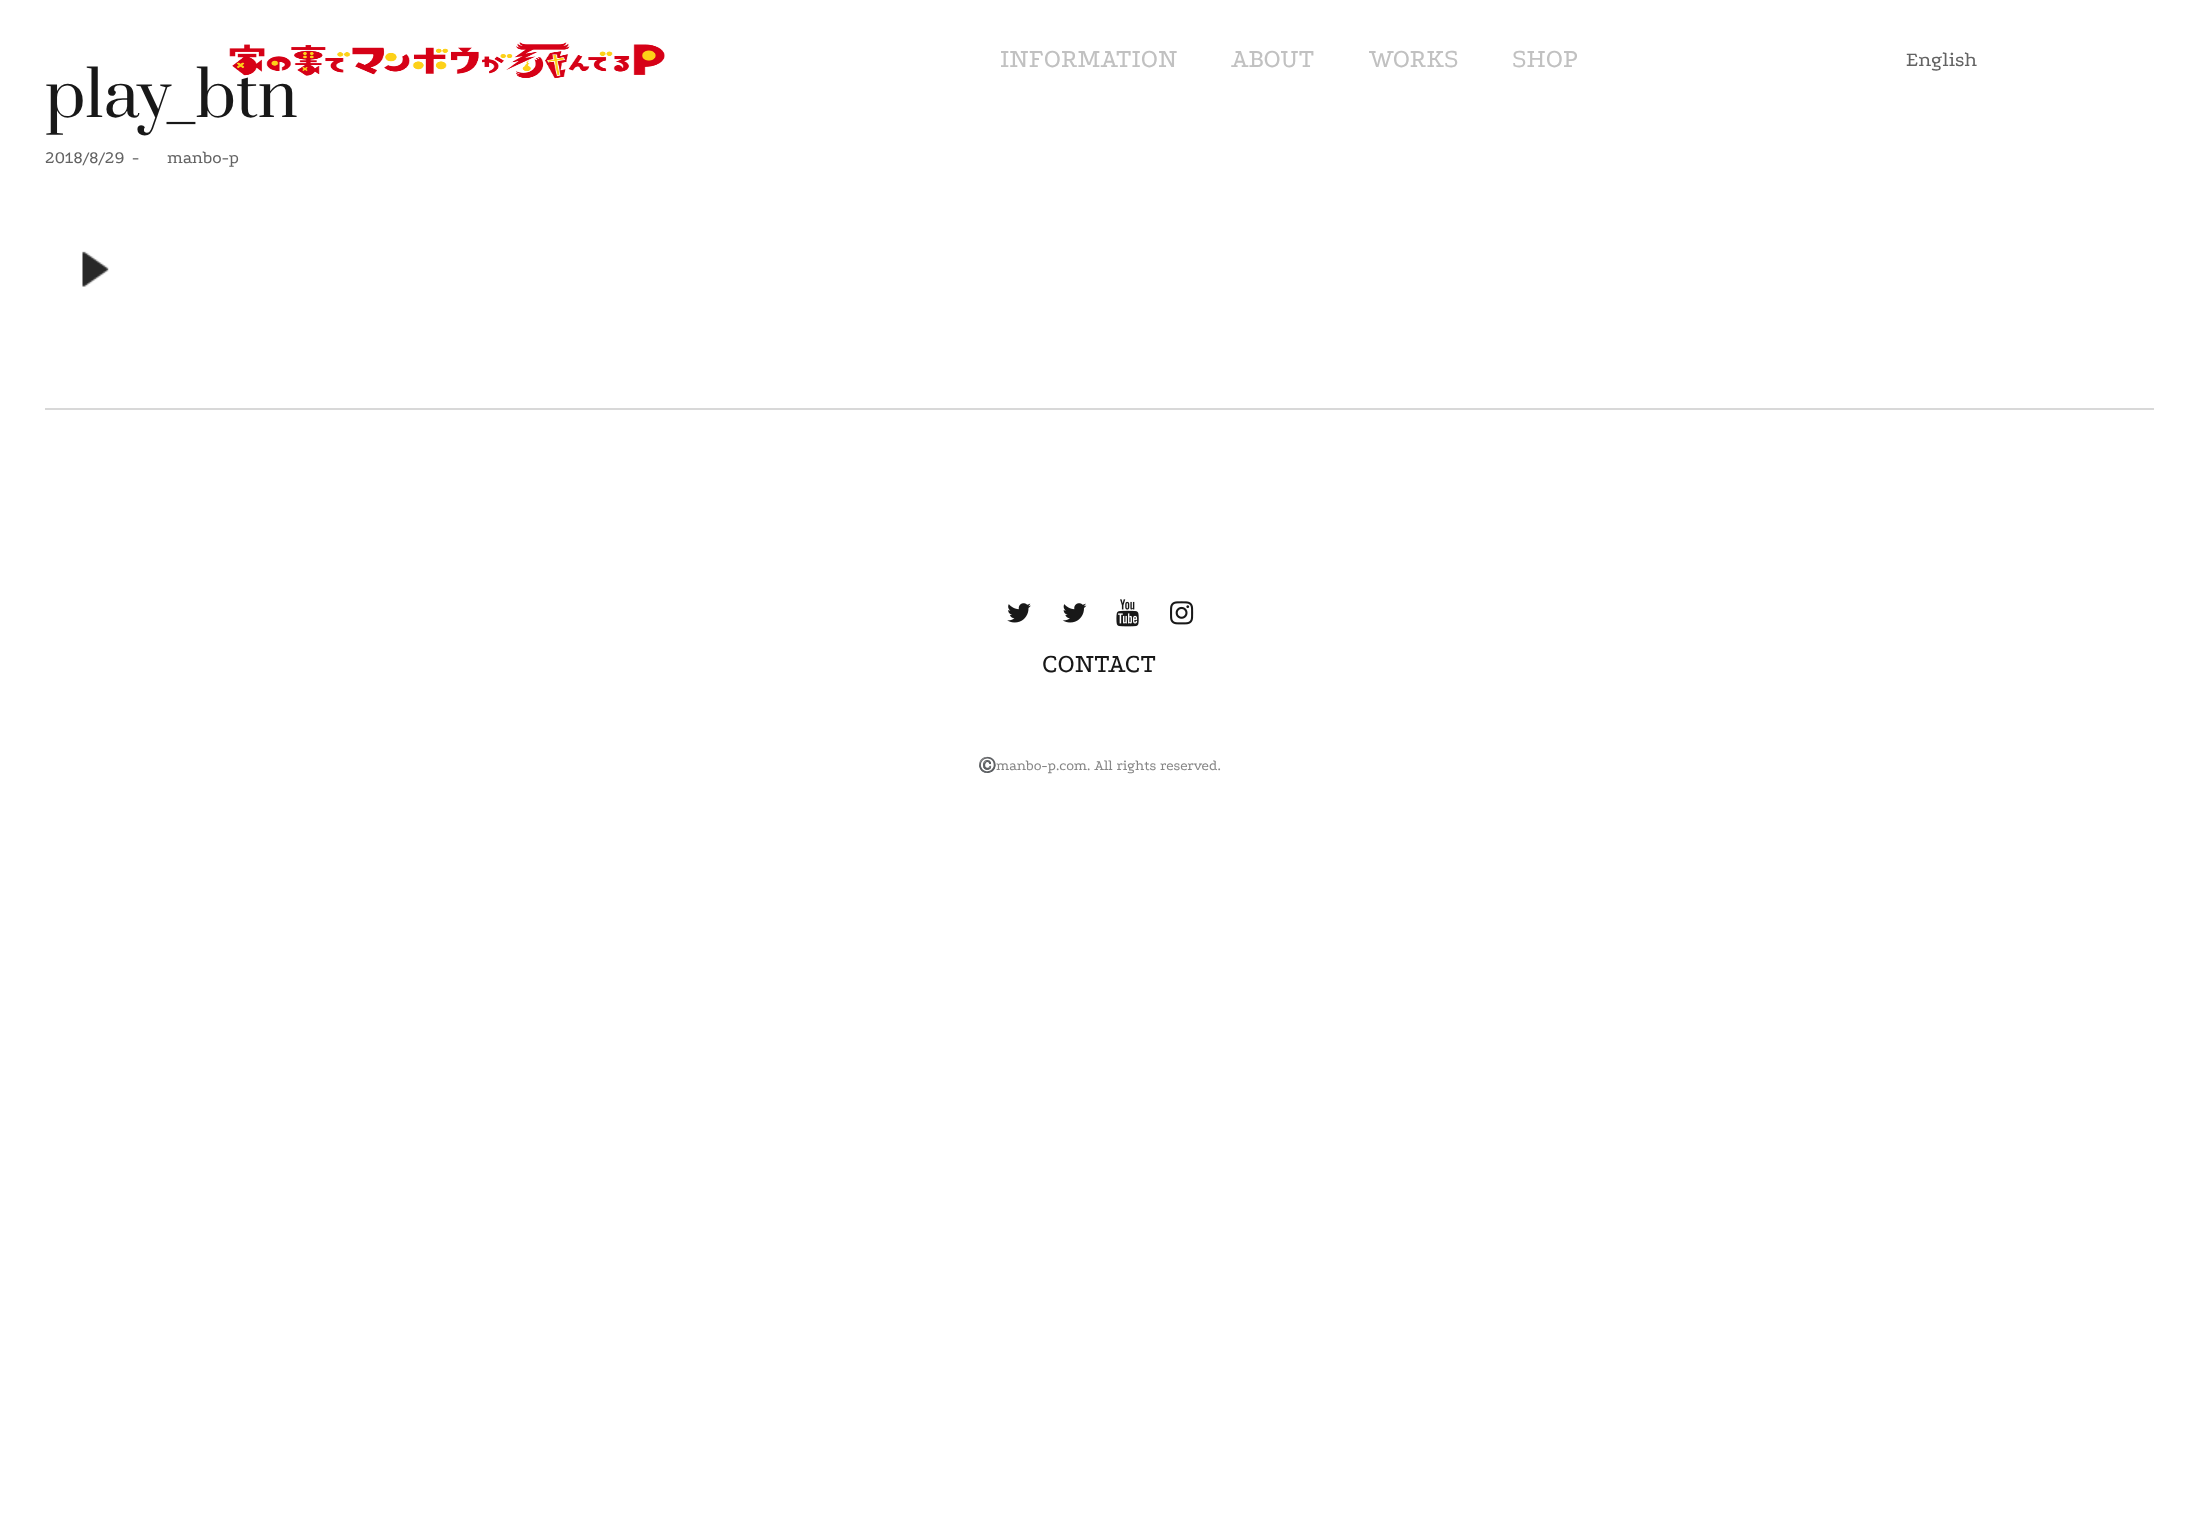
<svg xmlns="http://www.w3.org/2000/svg" width="2198" height="1525">
<style>
.a{font:27px Podkova;fill:#c1c1c1}
.b{font:21px Podkova;fill:#636363}
.c{font:63px Prata;fill:#181818}
.d{font:18px Podkova;fill:#636363}
.e{font:27px Podkova;fill:#181818}
.f{font:15px Noto Color Emoji;fill:#868686}
.g{font:15px Podkova;fill:#868686}
</style>
<rect width="100%" height="100%" fill="#fff"/>
<image href="2.png" x="82" y="251" width="27" height="36"/>
<path fill="#d8d8d8" d="M45 408h2109v2H45z"/>
<image href="3.png" x="1007" y="603" width="24" height="20"/>
<image href="4.png" x="1062" y="603" width="25" height="20"/>
<image href="5.png" x="1116" y="599" width="23" height="28"/>
<image href="6.png" x="1170" y="601" width="24" height="24"/>
<text class="a" x="1000" y="67">INFORMATION</text>
<text class="a" x="1231" y="67">ABOUT</text>
<text class="a" x="1369" y="67">WORKS</text>
<text class="a" x="1512" y="67">SHOP</text>
<text class="b" x="1906" y="66">English</text>
<text class="c" x="45" y="117">play_btn</text>
<image href="1.png" x="229" y="42" width="436" height="37"/>
<text class="d" x="45" y="163">2018/8/29</text>
<text class="d" x="132" y="163">-</text>
<text class="d" x="167" y="163">manbo-p</text>
<text class="e" x="1042" y="672">CONTACT</text>
<text class="f" x="978" y="770">©️</text>
<text class="g" x="996" y="770">manbo-p.com. All rights reserved.</text>
</svg>
